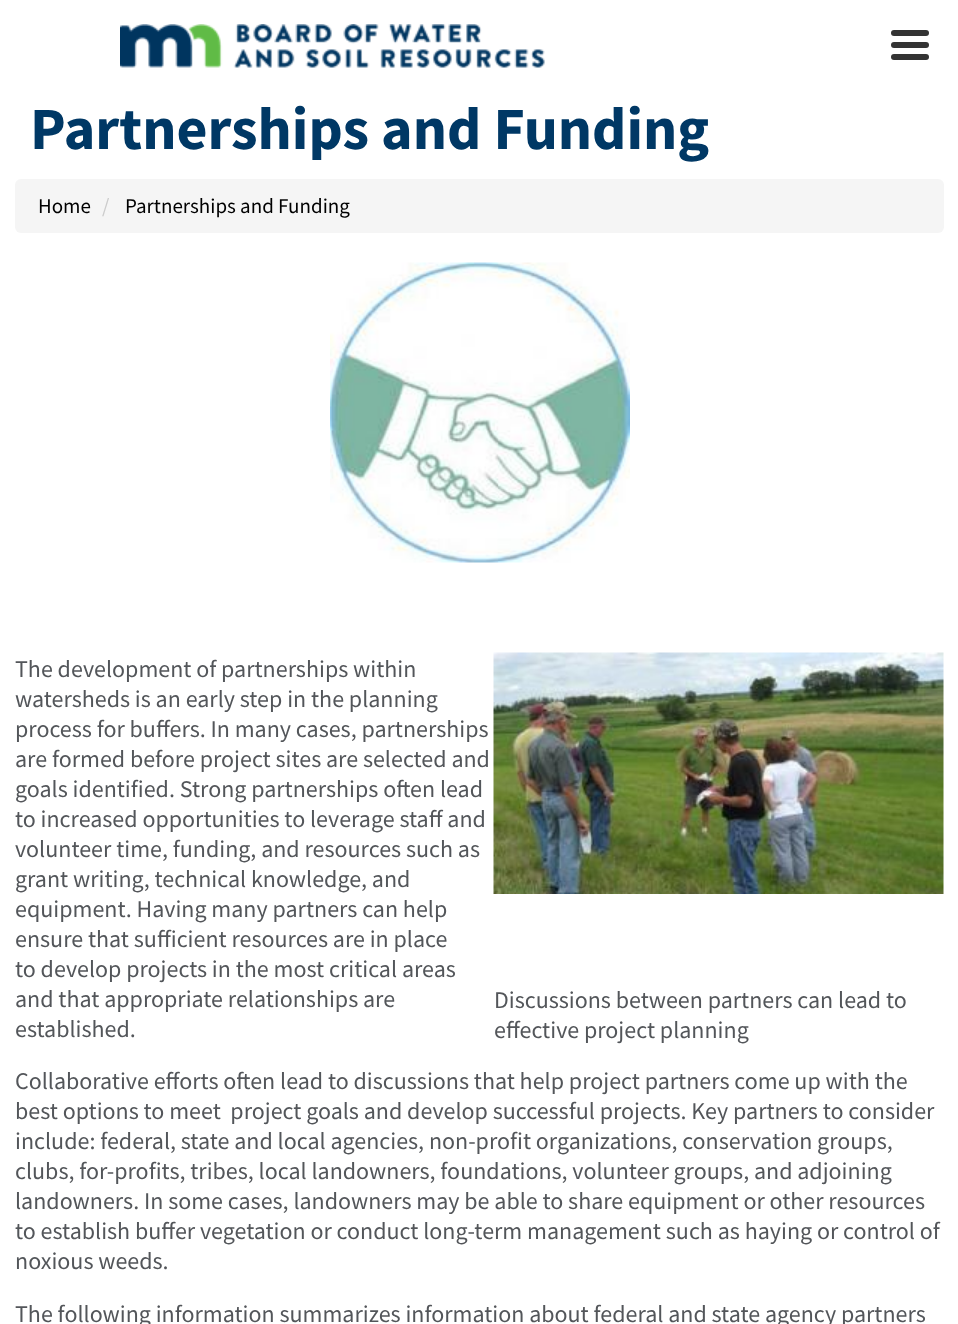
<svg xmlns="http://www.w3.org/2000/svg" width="958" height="1324">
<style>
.a{font:bold 60px Source Sans Pro;fill:#003865}
.b{font:21px Source Sans Pro;fill:#000}
.c{font:21px Source Sans Pro;fill:#ccc}
.d{font:24px Source Sans Pro;fill:#53565a}
</style>
<rect width="100%" height="100%" fill="#fff"/>
<image href="1.png" x="120" y="24" width="425" height="44"/>
<rect fill="#333" x="891" y="30" width="38" height="6" rx="3"/>
<rect fill="#333" x="891" y="42" width="38" height="6" rx="3"/>
<rect fill="#333" x="891" y="54" width="38" height="6" rx="3"/>
<rect fill="#f5f5f5" x="15" y="179" width="929" height="54" rx="6"/>
<image href="2.png" x="330" y="262" width="300" height="301"/>
<image href="3.png" x="493" y="652" width="451" height="242"/>
<text class="a" x="30" y="149">Partnerships and Funding</text>
<text class="b" x="38" y="213">Home</text>
<text class="c" x="102" y="213">/</text>
<text class="b" x="125" y="213">Partnerships and Funding</text>
<text class="d" x="15" y="677">The development of partnerships within</text>
<text class="d" x="15" y="707">watersheds is an early step in the planning</text>
<text class="d" x="15" y="737">process for buffers. In many cases, partnerships</text>
<text class="d" x="15" y="767">are formed before project sites are selected and</text>
<text class="d" x="15" y="797">goals identified. Strong partnerships often lead</text>
<text class="d" x="15" y="827">to increased opportunities to leverage staff and</text>
<text class="d" x="15" y="857">volunteer time, funding, and resources such as</text>
<text class="d" x="15" y="887">grant writing, technical knowledge, and</text>
<text class="d" x="15" y="917">equipment. Having many partners can help</text>
<text class="d" x="15" y="947">ensure that sufficient resources are in place</text>
<text class="d" x="15" y="977">to develop projects in the most critical areas</text>
<text class="d" x="15" y="1007">and that appropriate relationships are</text>
<text class="d" x="15" y="1037">established.</text>
<text class="d" x="494" y="1008">Discussions between partners can lead to</text>
<text class="d" x="494" y="1038">effective project planning</text>
<text class="d" x="15" y="1089">Collaborative efforts often lead to discussions that help project partners come up with the</text>
<text class="d" xml:space="preserve" x="15" y="1119">best options to meet  project goals and develop successful projects. Key partners to consider</text>
<text class="d" x="15" y="1149">include: federal, state and local agencies, non-profit organizations, conservation groups,</text>
<text class="d" x="15" y="1179">clubs, for-profits, tribes, local landowners, foundations, volunteer groups, and adjoining</text>
<text class="d" x="15" y="1209">landowners. In some cases, landowners may be able to share equipment or other resources</text>
<text class="d" x="15" y="1239">to establish buffer vegetation or conduct long-term management such as haying or control of</text>
<text class="d" x="15" y="1269">noxious weeds.</text>
<text class="d" x="15" y="1322">The following information summarizes information about federal and state agency partners</text>
</svg>
